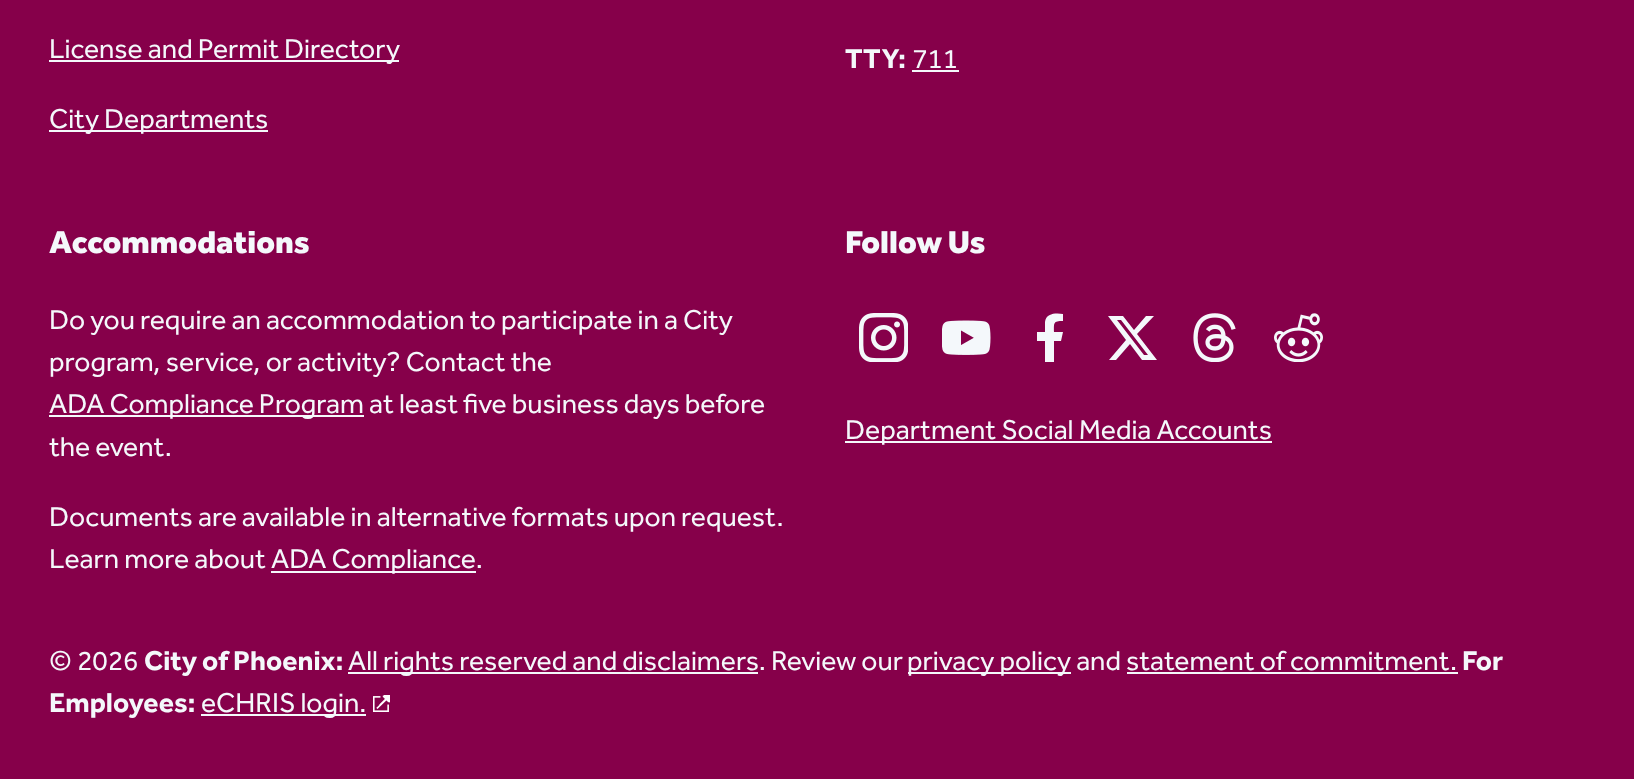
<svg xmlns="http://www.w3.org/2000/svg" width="1634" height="779">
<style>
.a{font:28.25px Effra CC;fill:#f4f8fb}
.b{font:bold 28.25px Effra CC;fill:#f4f8fb}
.c{font:bold 32.75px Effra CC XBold;fill:#f4f8fb}
</style>
<rect width="100%" height="100%" fill="#86004a"/>
<path fill="#f4f8fb" d="M49 60h350v2H49z"/>
<path fill="#f4f8fb" d="M49 130h219v2H49z"/>
<path fill="#f4f8fb" d="M912 70h47v2H912z"/>
<path fill="#f4f8fb" d="M49 415h315v2H49z"/>
<path fill="#f4f8fb" d="M271 571h205v2H271z"/>
<image href="1.png" x="859" y="313" width="49" height="49"/>
<image href="2.png" x="942" y="320" width="49" height="35"/>
<path fill="#f4f8fb" d="M1061 341l2-9h-9c0-9-1-11 9-11v-7c-7-1-17-1-18 8v10h-8v9h8v21h9v-21z"/>
<path fill="#f4f8fb" d="M1146 316h8l-17 18l20 26h-15l-12-16l-14 16h-7l17-20l-18-24h15l11 14zm-2 39h4l-27-35h-4z"/>
<image href="3.png" x="1193" y="313" width="43" height="49"/>
<image href="4.png" x="1274" y="313" width="49" height="49"/>
<path fill="#f4f8fb" d="M845 441h427v2H845z"/>
<path fill="#f4f8fb" d="M348 672h410v2H348z"/>
<path fill="#f4f8fb" d="M908 672h163v2H908z"/>
<path fill="#f4f8fb" d="M1127 672h331v2H1127z"/>
<path fill="#f4f8fb" d="M201 714h165v2H201z"/>
<image href="5.png" x="373" y="695" width="17" height="17"/>
<text class="a" x="49" y="58">License and Permit Directory</text>
<text class="a" x="49" y="128">City Departments</text>
<text class="b" x="845" y="68">TTY:</text>
<text class="a" x="912" y="68">711</text>
<text class="c" x="49" y="253">Accommodations</text>
<text class="a" x="49" y="329">Do you require an accommodation to participate in a City</text>
<text class="a" x="49" y="371">program, service, or activity? Contact the</text>
<text class="a" x="49" y="413">ADA Compliance Program at least five business days before</text>
<text class="a" x="49" y="456">the event.</text>
<text class="a" x="49" y="526">Documents are available in alternative formats upon request.</text>
<text class="a" x="49" y="568">Learn more about</text>
<text class="a" x="271" y="568">ADA Compliance.</text>
<text class="c" x="845" y="253">Follow Us</text>
<text class="a" x="845" y="439">Department Social Media Accounts</text>
<text class="a" x="49" y="670">© 2026</text>
<text class="b" x="144" y="670">City of Phoenix:</text>
<text class="a" x="348" y="670">All rights reserved and disclaimers. Review our</text>
<text class="a" x="907" y="670">privacy policy and statement of commitment.</text>
<text class="b" x="1462" y="670">For</text>
<text class="b" x="49" y="712">Employees:</text>
<text class="a" x="201" y="712">eCHRIS login.</text>
</svg>
